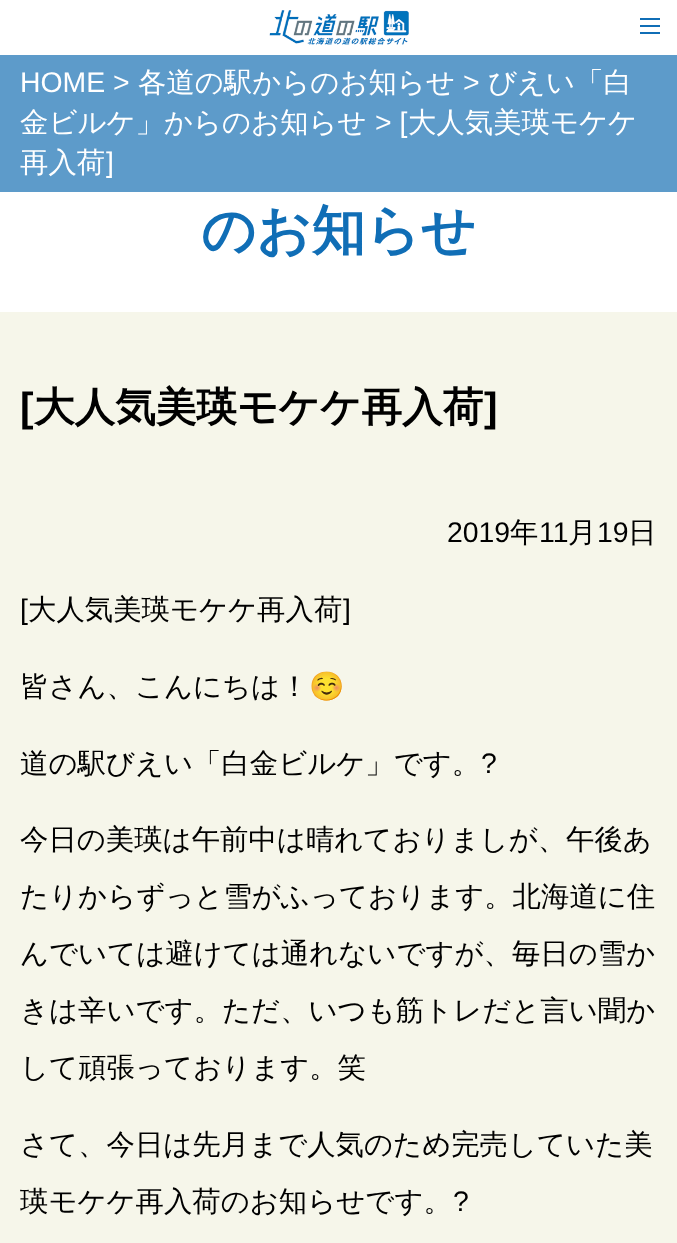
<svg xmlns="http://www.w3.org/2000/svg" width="677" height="1243">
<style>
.a{font:28.4px Liberation Sans;fill:#fff}
.b{font:500 28.4px WenQuanYi Zen Hei;fill:#fff}
.c{font:bold 54px WenQuanYi Zen Hei;fill:#106eb6}
.d{font:bold 40.6px Liberation Sans;fill:#000}
.e{font:bold 40.6px WenQuanYi Zen Hei;fill:#000}
.f{font:28.4px Liberation Sans;fill:#000}
.g{font:500 28.4px WenQuanYi Zen Hei;fill:#000}
.h{font:28.4px Noto Color Emoji;fill:#000}
</style>
<rect width="100%" height="100%" fill="#f6f6ea"/>
<path fill="#fff" d="M0 0h677v55H0z"/>
<image href="1.png" x="269" y="10" width="140" height="35"/>
<path fill="#106eb6" d="M640 18h20v2H640z"/>
<path fill="#106eb6" d="M640 25h20v2H640z"/>
<path fill="#106eb6" d="M640 32h20v2H640z"/>
<path fill="#5d9bca" d="M0 55h677v137H0z"/>
<path fill="#fff" d="M0 192h677v120H0z"/>
<text class="a" x="20" y="92">HOME &gt;</text>
<text class="b" x="138" y="92">各道の駅からのお知らせ</text>
<text class="a" x="463" y="92">&gt;</text>
<text class="b" x="488" y="92">びえい「白</text>
<text class="b" x="20" y="132">金ビルケ」からのお知らせ</text>
<text class="a" x="375" y="132">&gt; [</text>
<text class="b" x="408" y="132">大人気美瑛モケケ</text>
<text class="b" x="20" y="172">再入荷</text>
<text class="a" x="106" y="172">]</text>
<text class="c" x="201" y="249">のお知らせ</text>
<text class="d" x="20" y="421">[</text>
<text class="e" x="34" y="421">大人気美瑛モケケ再入荷</text>
<text class="d" x="484" y="421">]</text>
<text class="f" x="447" y="542">2019</text>
<text class="g" x="510" y="542">年</text>
<text class="f" x="539" y="542">11</text>
<text class="g" x="568" y="542">月</text>
<text class="f" x="597" y="542">19</text>
<text class="g" x="628" y="542">日</text>
<text class="f" x="20" y="619">[</text>
<text class="g" x="28" y="619">大人気美瑛モケケ再入荷</text>
<text class="f" x="343" y="619">]</text>
<text class="g" x="20" y="696">皆さん、こんにちは！</text>
<text class="h" x="309" y="696">☺️</text>
<text class="g" x="20" y="773">道の駅びえい「白金ビルケ」です。</text>
<text class="f" x="481" y="773">?</text>
<text class="g" x="20" y="849">今日の美瑛は午前中は晴れておりましが、午後あ</text>
<text class="g" x="20" y="906">たりからずっと雪がふっております。北海道に住</text>
<text class="g" x="20" y="963">んでいては避けては通れないですが、毎日の雪か</text>
<text class="g" x="20" y="1020">きは辛いです。ただ、いつも筋トレだと言い聞か</text>
<text class="g" x="20" y="1077">して頑張っております。笑</text>
<text class="g" x="20" y="1154">さて、今日は先月まで人気のため完売していた美</text>
<text class="g" x="20" y="1211">瑛モケケ再入荷のお知らせです。</text>
<text class="f" x="453" y="1211">?</text>
</svg>
